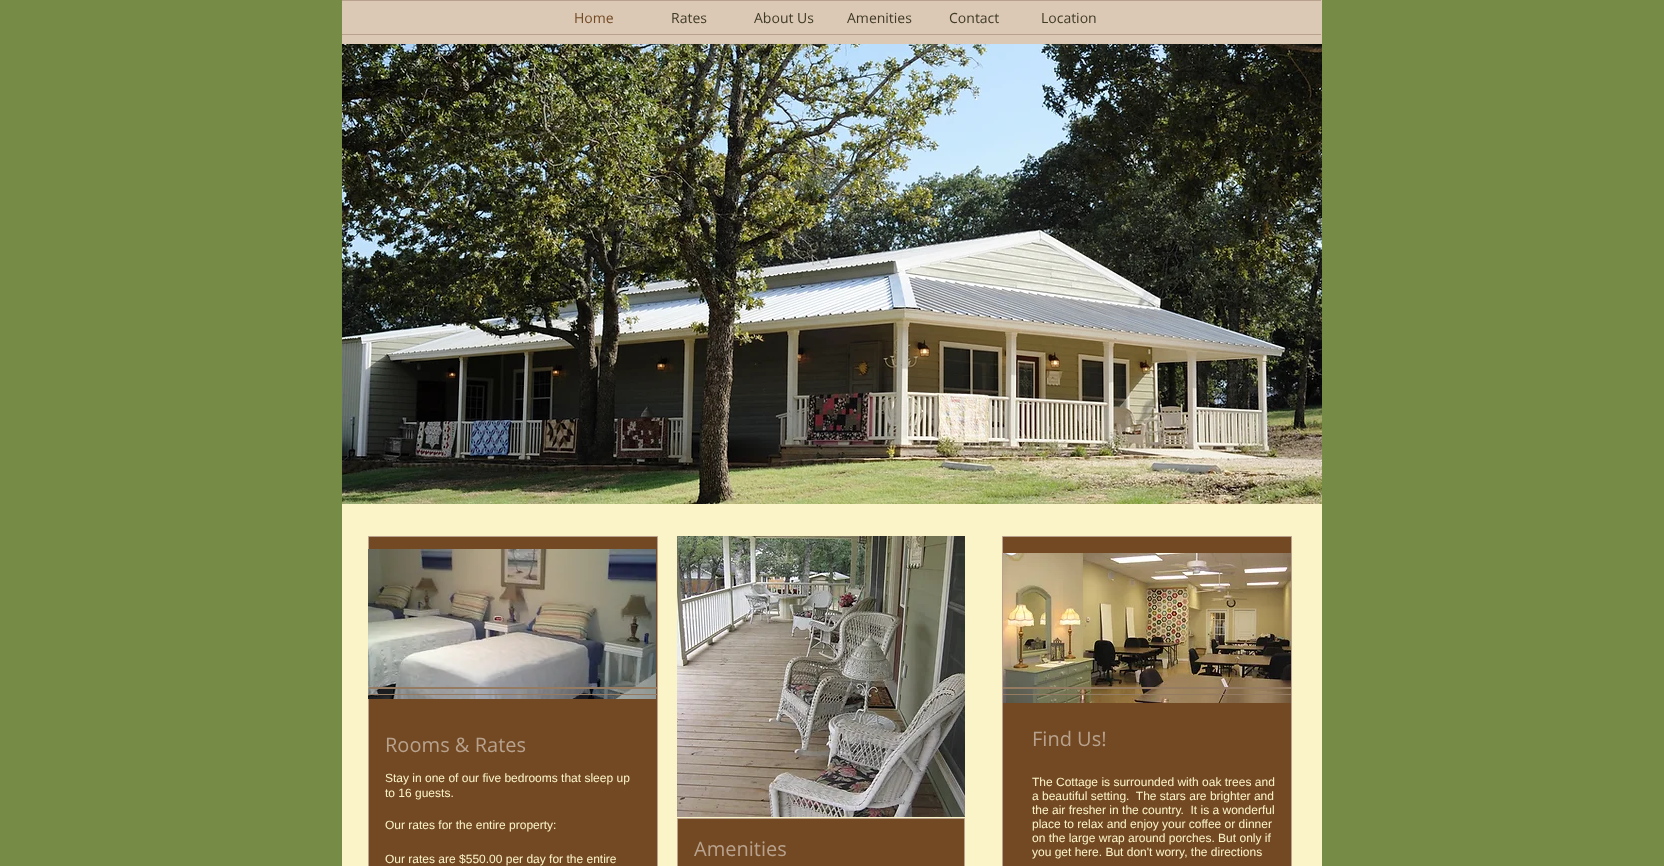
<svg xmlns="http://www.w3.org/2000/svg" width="1664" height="866">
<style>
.a{font:14px Open Sans;fill:#724923}
.b{font:14px Open Sans;fill:#3e3a25}
.c{font:20px Open Sans;fill:#b8a28e}
.d{font:12px Liberation Sans;fill:#fcf4c9}
</style>
<rect width="100%" height="100%" fill="#768c46"/>
<path fill="#dbc8b5" d="M342 0h980v44H342z"/>
<path fill="#b8a28e" d="M342 0h979v1H342z"/>
<path fill="#b8a28e" d="M342 34h979v1H342z"/>
<path fill="#fcf4c9" d="M342 504h980v362H342z"/>
<image href="1.png" x="342" y="44" width="980" height="460"/>
<path fill="#724923" stroke="#b8a28e" d="M368.5 536.5h289v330H368.5z"/>
<image href="2.png" x="368" y="549" width="288" height="150"/>
<path fill="#957b62" d="M369 687h288v2H369z"/>
<path fill="#957b62" d="M369 694h288v1H369z"/>
<image href="3.png" x="677" y="536" width="288" height="281"/>
<path fill="#724923" stroke="#b8a28e" d="M1002.5 536.5h289v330H1002.5z"/>
<image href="4.png" x="1003" y="553" width="288" height="150"/>
<path fill="#957b62" d="M1003 687h288v2H1003z"/>
<path fill="#957b62" d="M1003 694h288v1H1003z"/>
<path fill="#724923" stroke="#b8a28e" d="M677.5 818.5h287v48H677.5z"/>
<text class="a" x="574" y="23">Home</text>
<text class="b" x="671" y="23">Rates</text>
<text class="b" x="754" y="23">About Us</text>
<text class="b" x="847" y="23">Amenities</text>
<text class="b" x="949" y="23">Contact</text>
<text class="b" x="1041" y="23">Location</text>
<text class="c" x="385" y="752">Rooms &amp; Rates</text>
<text class="d" x="385" y="782">Stay in one of our five bedrooms that sleep up</text>
<text class="d" x="385" y="797">to 16 guests.</text>
<text class="d" x="385" y="829">Our rates for the entire property:</text>
<text class="d" x="385" y="863">Our rates are $550.00 per day for the entire</text>
<text class="c" x="1032" y="746">Find Us!</text>
<text class="d" x="1032" y="786">The Cottage is surrounded with oak trees and</text>
<text class="d" xml:space="preserve" x="1032" y="800">a beautiful setting.  The stars are brighter and</text>
<text class="d" xml:space="preserve" x="1032" y="814">the air fresher in the country.  It is a wonderful</text>
<text class="d" x="1032" y="828">place to relax and enjoy your coffee or dinner</text>
<text class="d" x="1032" y="842">on the large wrap around porches. But only if</text>
<text class="d" x="1032" y="856">you get here. But don't worry, the directions</text>
<text class="c" x="694" y="856">Amenities</text>
</svg>
